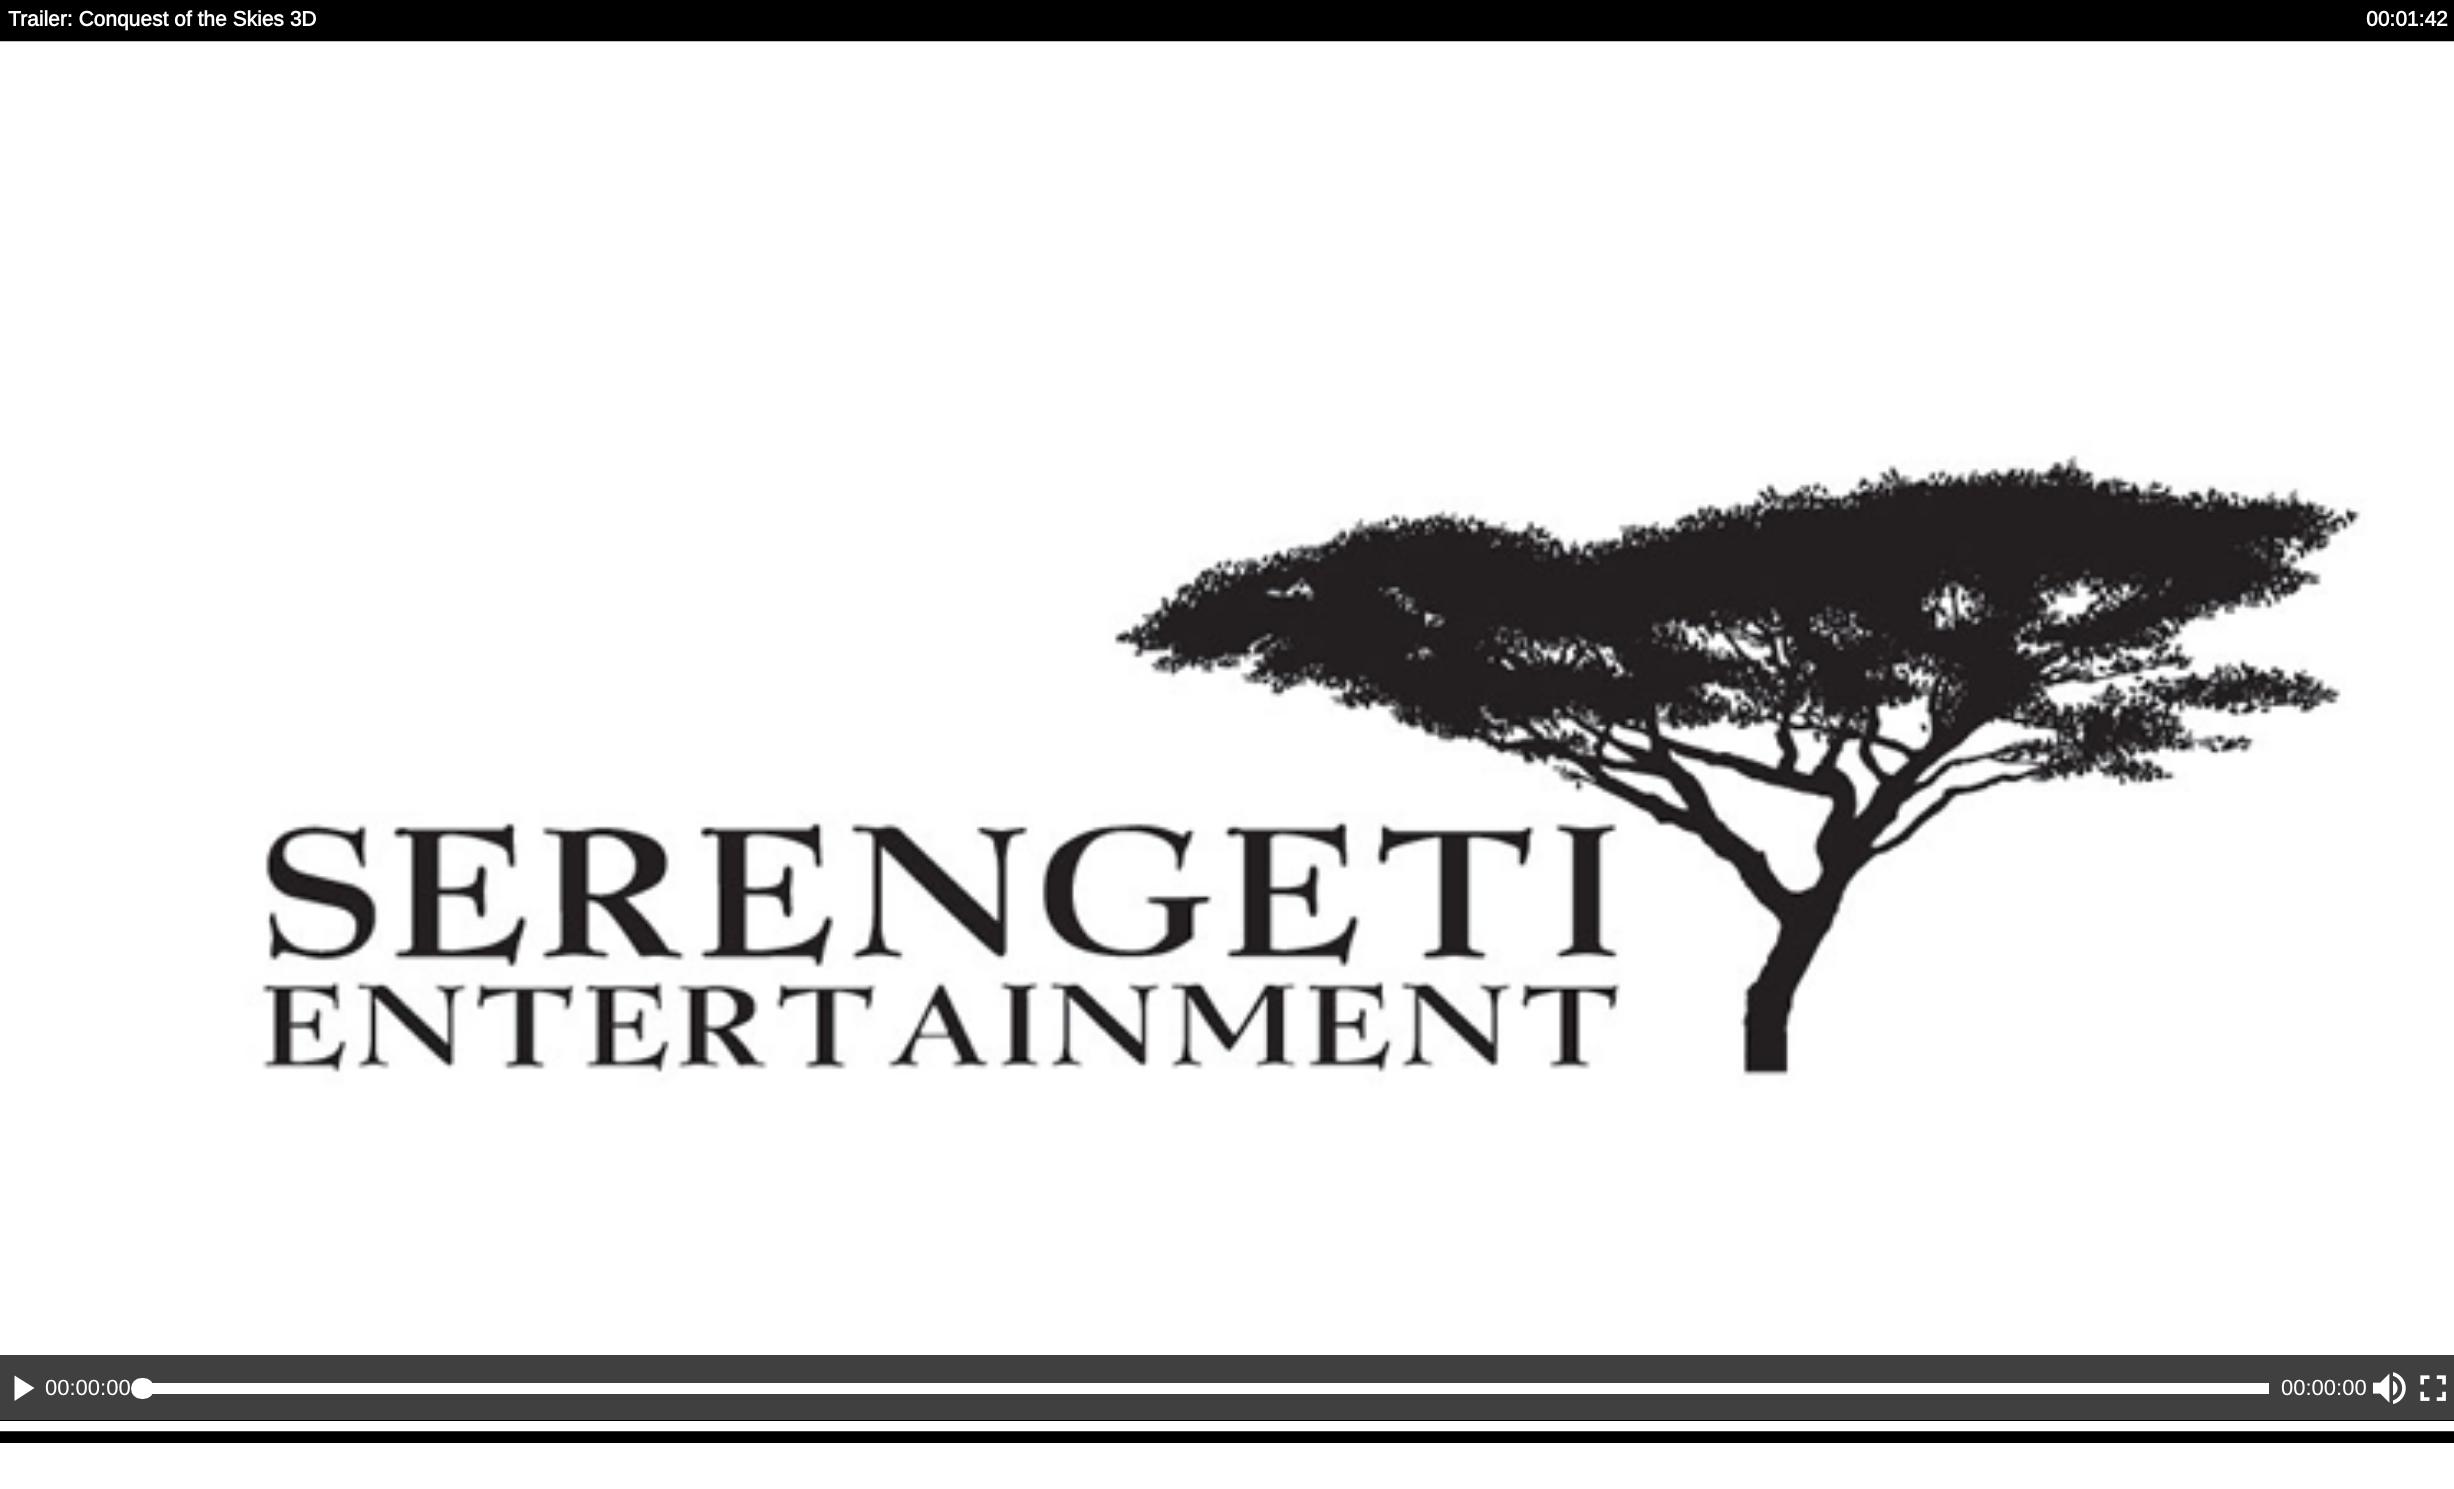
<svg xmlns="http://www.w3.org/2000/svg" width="2454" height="1489">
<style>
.a{font:bold 21px Arimo;fill:#fff}
.b{font:22px Liberation Sans;fill:#fff}
</style>
<rect width="100%" height="100%" fill="#fff"/>
<path fill="#000" d="M0 0h2454v1421H0z"/>
<path fill="#000" d="M0 1431h2454v12H0z"/>
<image href="1.png" x="0" y="1421" width="2454" height="11"/>
<image href="2.png" x="0" y="41" width="2454" height="1379"/>
<path fill="#000000bf" d="M0 1355h2454v65H0z"/>
<path fill="#fff" d="M14.5 1375.5v25.5l20-13z"/>
<path fill="#fff" d="M152 1383h2117v11H152z"/>
<rect fill="#fff" x="131" y="1378" width="23" height="21" rx="10.5"/>
<image href="3.png" x="2372" y="1372" width="34" height="32"/>
<image href="4.png" x="2420" y="1375" width="26" height="26"/>
<text class="a" x="8" y="26">Trailer: Conquest of the Skies 3D</text>
<text class="a" x="2366" y="26">00:01:42</text>
<text class="b" x="45" y="1395">00:00:00</text>
<text class="b" x="2281" y="1395">00:00:00</text>
</svg>
